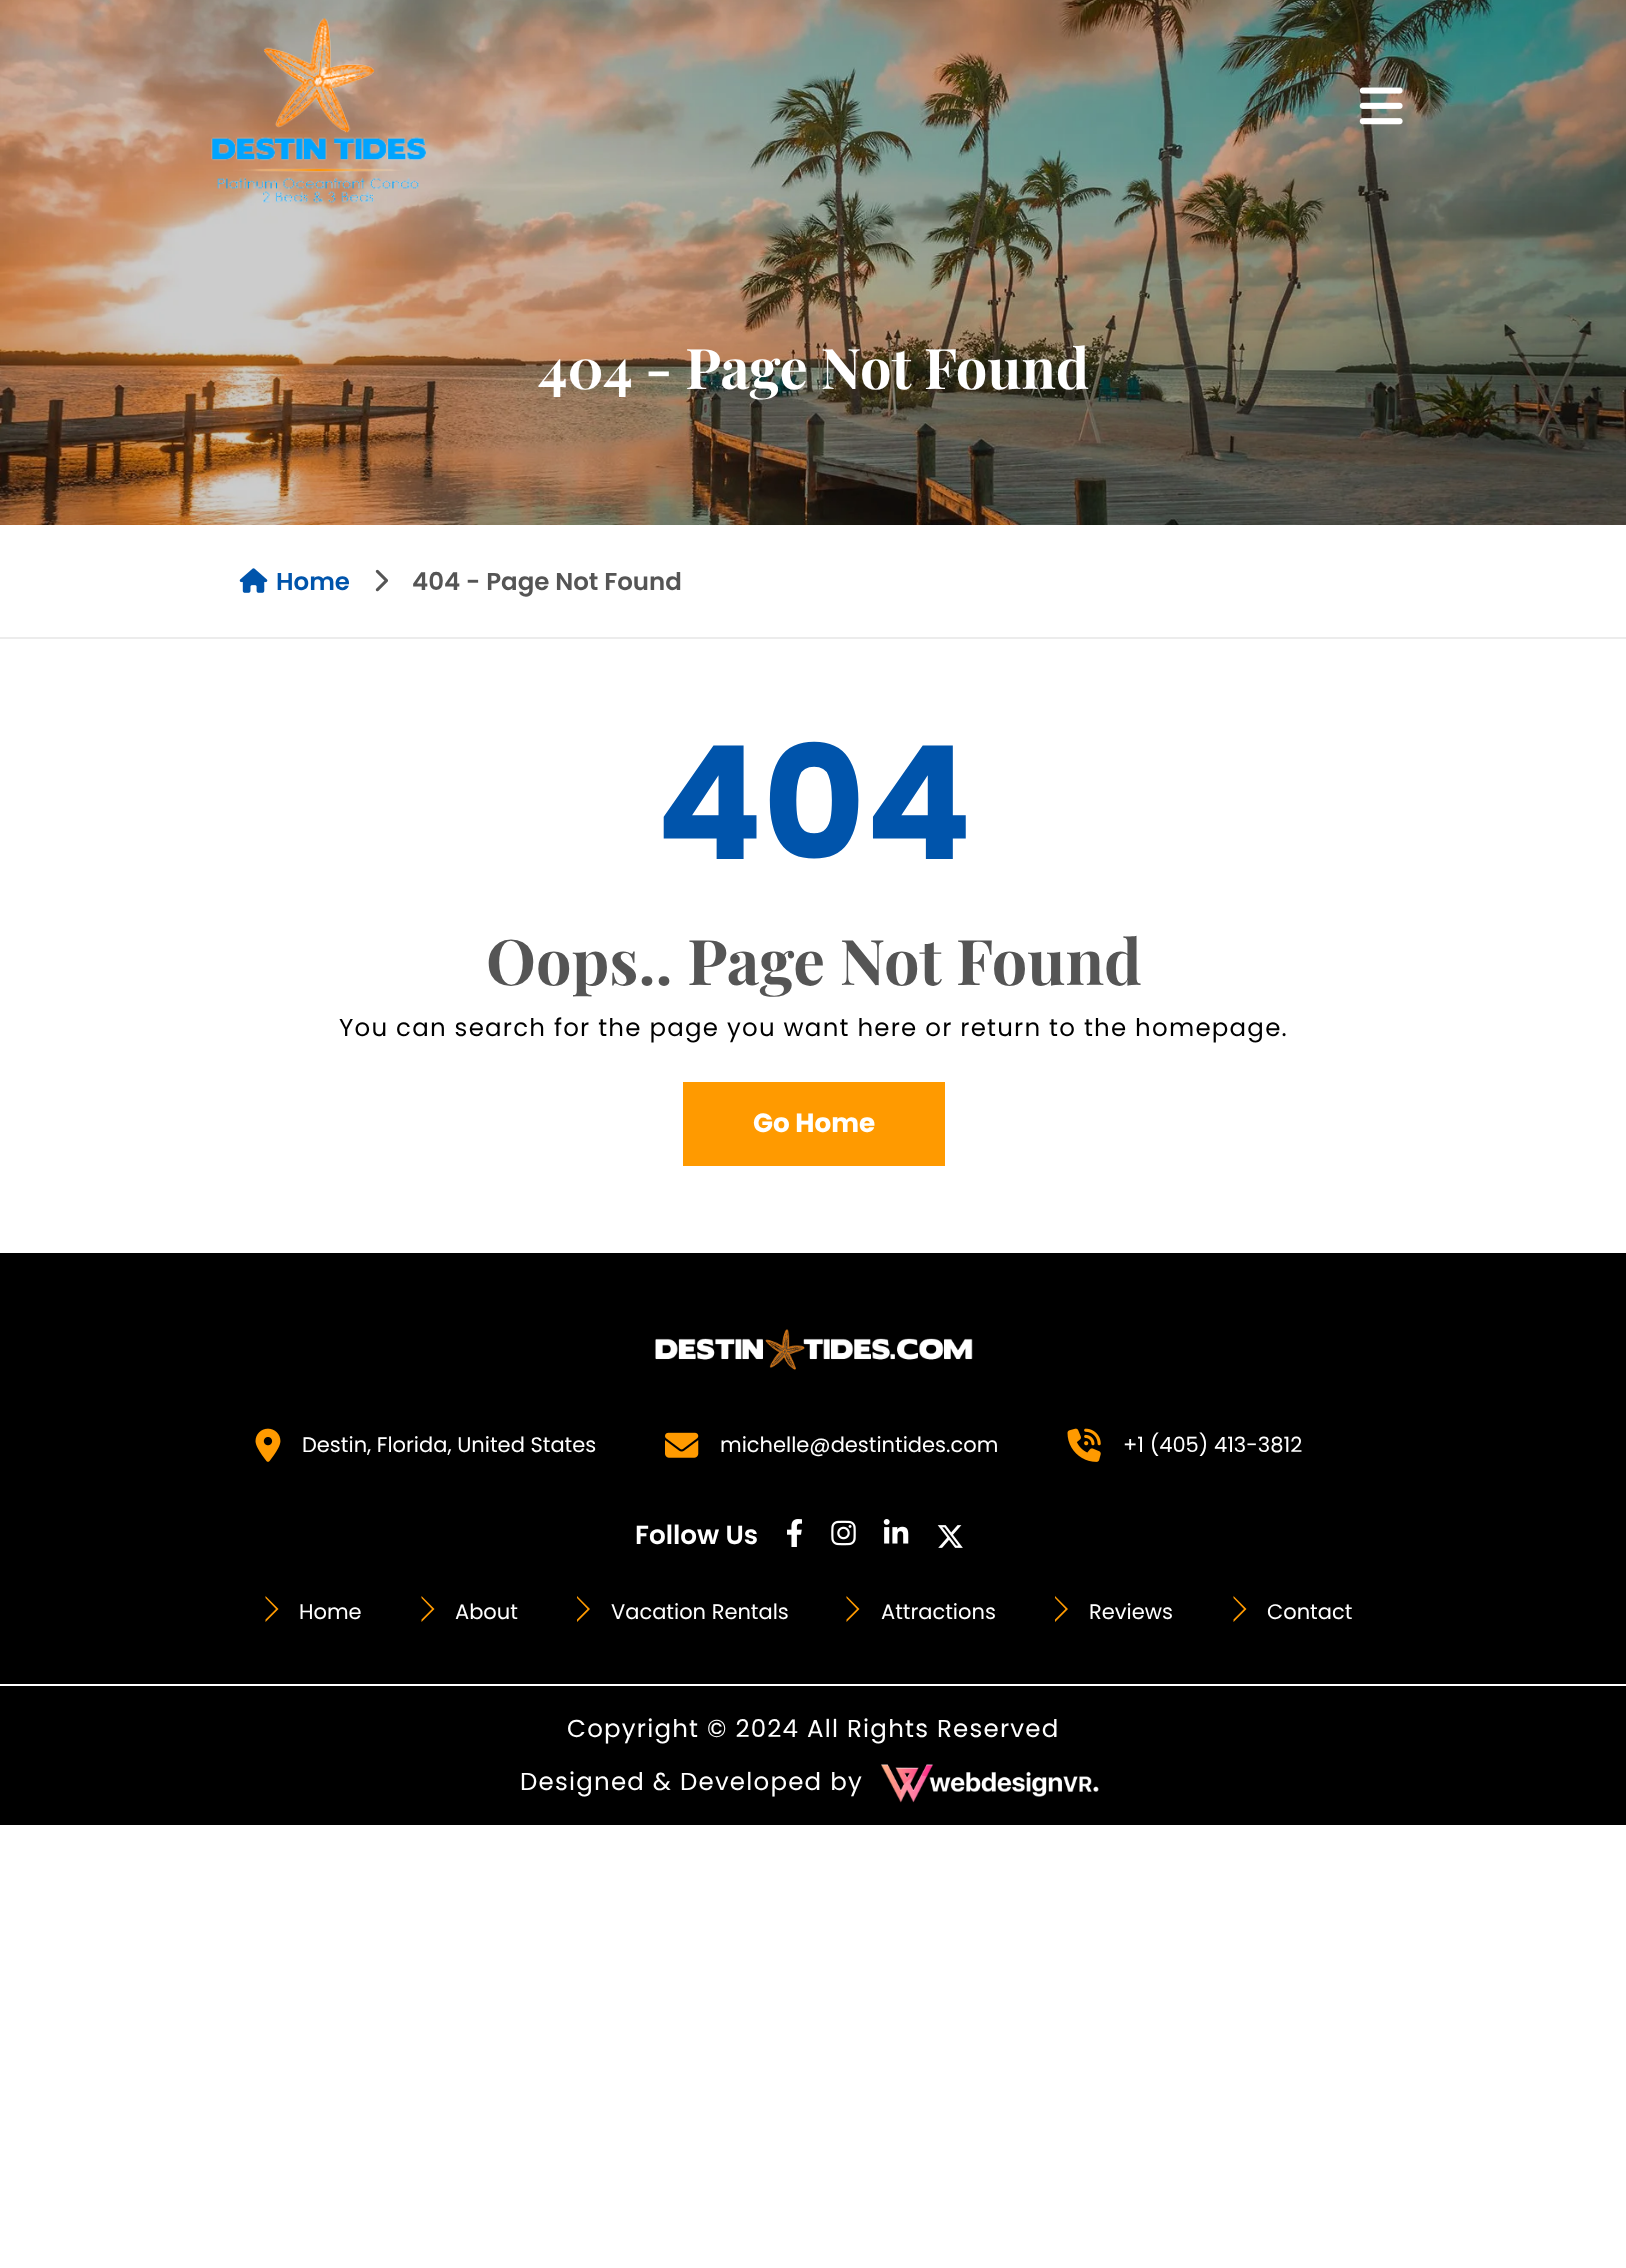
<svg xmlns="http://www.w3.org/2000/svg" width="1626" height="2268">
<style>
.a{font:bold 56px Playfair Display;fill:#fff}
.b{font:600 24.5px Poppins;fill:#0054ab}
.c{font:600 24.5px Poppins;fill:#555}
.d{font:bold 157.5px Poppins;fill:#0054ab}
.e{font:bold 63px Playfair Display;fill:#555}
.f{font:24.5px Poppins;letter-spacing:1.22px;fill:#000}
.g{font:bold 26.25px Poppins;fill:#fff}
.h{font:21px Poppins;fill:#fff}
.i{font:600 26.25px Poppins;fill:#fff}
.j{font:24.5px Poppins;letter-spacing:1.22px;fill:#fff}
</style>
<rect width="100%" height="100%" fill="#fff"/>
<image href="3.png" x="0" y="0" width="1626" height="525"/>
<image href="1.png" x="211" y="18" width="215" height="185"/>
<image href="2.png" x="1359" y="87" width="44" height="38"/>
<path fill="#ececec" d="M0 637h1626v2H0z"/>
<image href="4.png" x="239" y="568" width="29" height="25"/>
<image href="5.png" x="375" y="569" width="13" height="23"/>
<path fill="#ff9a00" d="M683 1082h262v84H683z"/>
<path fill="#000" d="M0 1253h1626v572H0z"/>
<image href="6.png" x="655" y="1329" width="318" height="41"/>
<image href="7.png" x="255" y="1428" width="26" height="34"/>
<image href="8.png" x="665" y="1432" width="34" height="26"/>
<image href="9.png" x="1067" y="1428" width="34" height="34"/>
<image href="10.png" x="787" y="1519" width="15" height="28"/>
<image href="11.png" x="831" y="1520" width="25" height="26"/>
<image href="12.png" x="883" y="1519" width="26" height="25"/>
<image href="13.png" x="937" y="1525" width="26" height="23"/>
<path fill="#ff9a00" d="M276 1609l-10.5-11v-2l13 13l-13 13v-2.5z"/>
<path fill="#ff9a00" d="M432 1609l-10.5-11v-2l13 13l-13 13v-2.5z"/>
<path fill="#ff9a00" d="M587.5 1609l-10.5-11v-2l13 13l-13 13v-2.5z"/>
<path fill="#ff9a00" d="M857 1609l-10.5-11v-2l13 13l-13 13v-2.5z"/>
<path fill="#ff9a00" d="M1065.5 1609l-10.5-11v-2l13 13l-13 13v-2.5z"/>
<path fill="#ff9a00" d="M1244 1609l-10.5-11v-2l13 13l-13 13v-2.5z"/>
<path fill="#fff" d="M0 1684h1626v2H0z"/>
<image href="14.png" x="881" y="1764" width="218" height="39"/>
<text class="a" x="538" y="389">404 - Page Not Found</text>
<text class="b" x="276" y="590">Home</text>
<text class="c" x="412" y="590">404 - Page Not Found</text>
<text class="d" x="656" y="859">404</text>
<text class="e" x="486" y="985">Oops.. Page Not Found</text>
<text class="f" x="339" y="1036">You can search for the page you want here or return to the homepage.</text>
<text class="g" x="753" y="1132">Go Home</text>
<text class="h" x="302" y="1452">Destin, Florida, United States</text>
<text class="h" x="720" y="1452">michelle@destintides.com</text>
<text class="h" x="1123" y="1452">+1 (405) 413-3812</text>
<text class="i" x="635" y="1544">Follow Us</text>
<text class="h" x="299" y="1619">Home</text>
<text class="h" x="455" y="1619">About</text>
<text class="h" x="611" y="1619">Vacation Rentals</text>
<text class="h" x="881" y="1619">Attractions</text>
<text class="h" x="1089" y="1619">Reviews</text>
<text class="h" x="1267" y="1619">Contact</text>
<text class="j" x="567" y="1737">Copyright © 2024 All Rights Reserved</text>
<text class="j" x="520" y="1790">Designed &amp; Developed by</text>
</svg>
